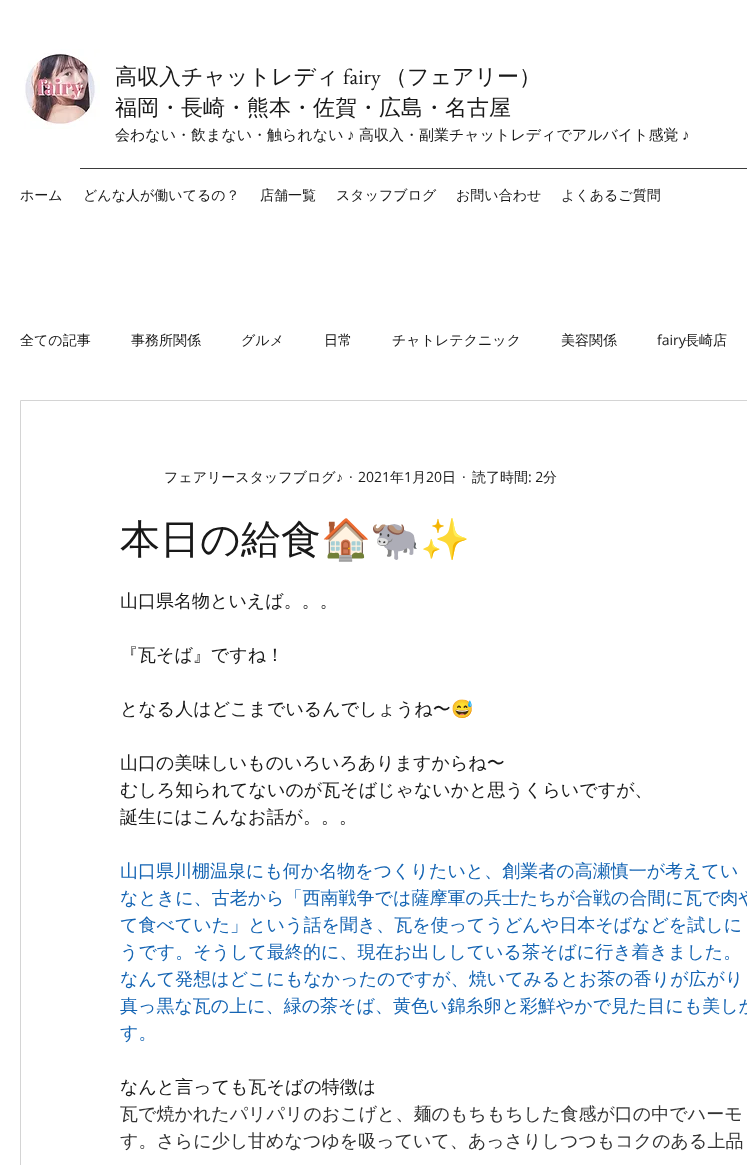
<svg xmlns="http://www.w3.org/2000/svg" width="747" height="1165">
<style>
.a{font:500 22px WenQuanYi Zen Hei;fill:#181818}
.b{font:22px EB Garamond;fill:#181818}
.c{font:500 15px WenQuanYi Zen Hei;fill:#181818}
.d{font:15px Liberation Sans;fill:#181818}
.e{font:500 14px WenQuanYi Zen Hei;fill:#181818}
.f{font:14px Open Sans;fill:#181818}
.g{font:14px Liberation Sans;fill:#181818}
.h{font:500 40px WenQuanYi Zen Hei;fill:#181818}
.i{font:40px Noto Color Emoji;fill:#181818}
.j{font:500 18px WenQuanYi Zen Hei;fill:#181818}
.k{font:18px Noto Color Emoji;fill:#181818}
.l{font:500 18px WenQuanYi Zen Hei;fill:#1464b3}
.m{font:500 18px WenQuanYi Zen Hei;fill:#333}
</style>
<rect width="100%" height="100%" fill="#fff"/>
<image href="1.png" x="24" y="49" width="76" height="80"/>
<path fill="#3b3b3b" d="M80 168h667v1H80z"/>
<path fill="none" stroke="#d4d4d4" d="M20.5 400.5h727v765H20.5z"/>
<text class="a" x="115" y="84">高収入チャットレディ</text>
<text class="b" x="343" y="84">fairy</text>
<text class="a" x="385" y="84">（フェアリー）</text>
<text class="a" x="115" y="115">福岡・長崎・熊本・佐賀・広島・名古屋</text>
<text class="c" x="115" y="140">会わない・飲まない・触られない</text>
<text class="d" x="347" y="140">♪</text>
<text class="c" x="359" y="140">高収入・副業チャットレディでアルバイト感覚</text>
<text class="d" x="682" y="140">♪</text>
<text class="e" x="20" y="200">ホーム</text>
<text class="e" x="83" y="200">どんな人が働いてるの？</text>
<text class="e" x="260" y="200">店舗一覧</text>
<text class="e" x="336" y="200">スタッフブログ</text>
<text class="e" x="456" y="200">お問い合わせ</text>
<text class="e" x="561" y="200">よくあるご質問</text>
<text class="e" x="20" y="345">全ての記事</text>
<text class="e" x="131" y="345">事務所関係</text>
<text class="e" x="241" y="345">グルメ</text>
<text class="e" x="324" y="345">日常</text>
<text class="e" x="392" y="345">チャトレテクニック</text>
<text class="e" x="561" y="345">美容関係</text>
<text class="f" x="657" y="345">fairy</text>
<text class="e" x="685" y="345">長崎店</text>
<text class="e" x="164" y="482">フェアリースタッフブログ</text>
<text class="g" x="336" y="482">♪</text>
<text class="f" x="349" y="482">·</text>
<text class="f" x="358" y="482">2021</text>
<text class="e" x="390" y="482">年</text>
<text class="f" x="404" y="482">1</text>
<text class="e" x="412" y="482">月</text>
<text class="f" x="426" y="482">20</text>
<text class="e" x="442" y="482">日</text>
<text class="f" x="462" y="482">·</text>
<text class="e" x="472" y="482">読了時間</text>
<text class="f" x="528" y="482">: 2</text>
<text class="e" x="543" y="482">分</text>
<text class="h" x="120" y="553">本日の給食</text>
<text class="i" x="321" y="553">🏠🐃✨</text>
<text class="j" x="120" y="607">山口県名物といえば。。。</text>
<text class="j" x="120" y="661">『瓦そば』ですね！</text>
<text class="j" x="120" y="715">となる人はどこまでいるんでしょうね〜</text>
<text class="k" x="451" y="715">😅</text>
<text class="j" x="120" y="769">山口の美味しいものいろいろありますからね〜</text>
<text class="j" x="120" y="796">むしろ知られてないのが瓦そばじゃないかと思うくらいですが、</text>
<text class="j" x="120" y="823">誕生にはこんなお話が。。。</text>
<text class="l" x="120" y="877">山口県川棚温泉にも何か名物をつくりたいと、創業者の高瀬慎一が考えてい</text>
<text class="l" x="120" y="904">なときに、古老から「西南戦争では薩摩軍の兵士たちが合戦の合間に瓦で肉や</text>
<text class="l" x="120" y="931">て食べていた」という話を聞き、瓦を使ってうどんや日本そばなどを試しに</text>
<text class="l" x="120" y="958">うです。そうして最終的に、現在お出ししている茶そばに行き着きました。</text>
<text class="l" x="120" y="985">なんて発想はどこにもなかったのですが、焼いてみるとお茶の香りが広がり</text>
<text class="l" x="120" y="1012">真っ黒な瓦の上に、緑の茶そば、黄色い錦糸卵と彩鮮やかで見た目にも美しか</text>
<text class="l" x="120" y="1039">す。</text>
<text class="j" x="120" y="1093">なんと言っても瓦そばの特徴は</text>
<text class="m" x="120" y="1120">瓦で焼かれたパリパリのおこげと、麺のもちもちした食感が口の中でハーモ</text>
<text class="m" x="120" y="1147">す。さらに少し甘めなつゆを吸っていて、あっさりしつつもコクのある上品</text>
</svg>
